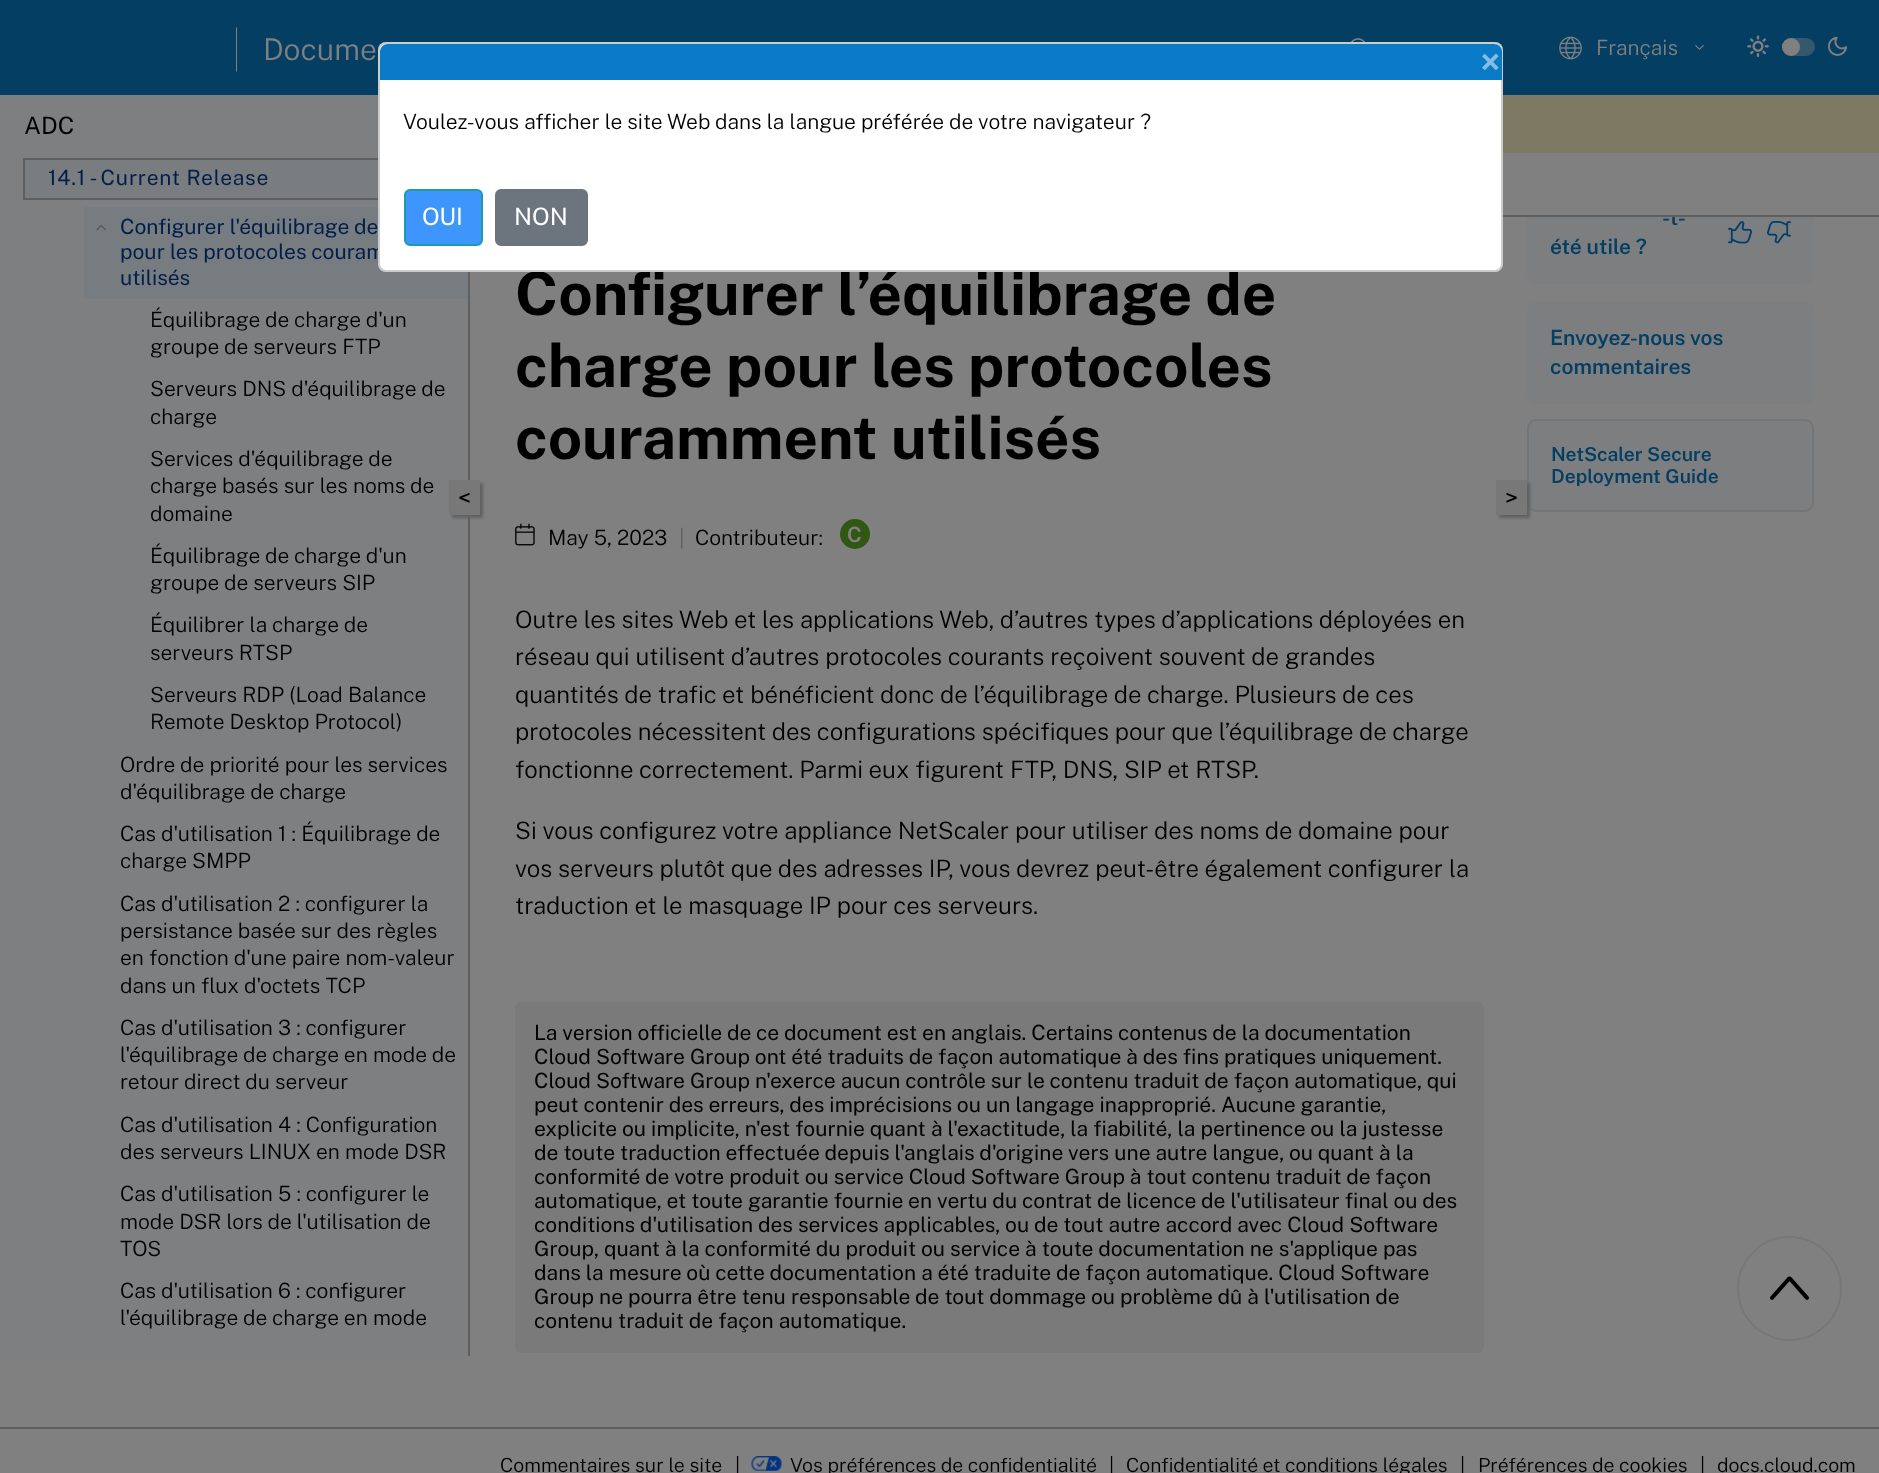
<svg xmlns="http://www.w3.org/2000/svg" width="1879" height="1473">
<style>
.a{font:300 30px Public Sans;fill:#808080}
.b{font:300 21px Public Sans;fill:#808080}
.c{font:300 19.5px Public Sans;fill:#000}
.d{font:24px Public Sans;fill:#000}
.e{font:21px Public Sans;letter-spacing:0.75px;fill:#031e49}
.f{font:21px Public Sans;fill:#031e49}
.g{font:300 21px Public Sans;fill:#000}
.h{font:bold 60px Public Sans;fill:#000}
.i{font:bold 36px Public Sans;fill:#85bde3}
.j{font:24px Public Sans;fill:#fff}
.k{font:300 21px Public Sans;fill:#5f5f5f}
.l{font:600 21px Public Sans;fill:#808080}
.m{font:300 24px Public Sans;fill:#000}
.n{font:21px Public Sans;fill:#000}
.o{font:600 21px Public Sans;fill:#053e63}
.p{font:600 19.25px Public Sans;fill:#053e63}
</style>
<rect width="100%" height="100%" fill="#808080"/>
<path fill="#053e63" d="M0 0h1879v95H0z"/>
<path fill="#808080" d="M236 27v1v43v1l1-1v-43z"/>
<image href="1.png" x="1350" y="38" width="16" height="4"/>
<image href="2.png" x="1559" y="36" width="23" height="24"/>
<image href="3.png" x="1695" y="45" width="9" height="5"/>
<image href="4.png" x="1747" y="35" width="22" height="23"/>
<rect fill="#36586f" x="1782" y="38" width="33" height="18" rx="9"/>
<circle fill="#808080" cx="1791" cy="47" r="9"/>
<image href="5.png" x="1827" y="36" width="20" height="20"/>
<circle fill="none" stroke="#777" stroke-width="2" cx="1789.5" cy="1288.5" r="51.5"/>
<image href="6.png" x="1770" y="1276" width="39" height="24"/>
<path fill="#5f5f5f" d="M0 1427h1879v2H0z"/>
<image href="7.png" x="751" y="1456" width="31" height="15"/>
<path fill="#7d7f80" d="M0 95h468v1261H0z"/>
<path fill="#5f5f5f" d="M468 272h2v1084H468z"/>
<path fill="#797d80" d="M25 160h353v38H25z"/>
<path fill="none" stroke="#5f5f5f" stroke-width="2" d="M24 159h421v40H24z"/>
<path fill="#767c80" d="M84 207h384v92H84z"/>
<image href="8.png" x="96" y="224" width="10" height="7"/>
<path fill="#7d7963" d="M1503 95h376v58H1503z"/>
<path fill="#616161" filter="blur(1.5px)" d="M452 483h31v35H452z"/>
<path fill="#787878" d="M449 480h31v35H449z"/>
<image href="9.png" x="515" y="523" width="20" height="23"/>
<circle fill="#315812" cx="855" cy="534" r="15"/>
<rect fill="#7a7a7a" x="515" y="1002" width="969" height="351" rx="6"/>
<rect fill="#7c7e80" x="1527" y="419" width="287" height="93" rx="9"/>
<rect fill="none" stroke="#00000012" stroke-width="2" x="1528" y="420" width="285" height="91" rx="8"/>
<path fill="#616161" filter="blur(1.5px)" d="M1499 483h31v35H1499z"/>
<path fill="#787878" d="M1496 480h31v35H1496z"/>
<rect fill="#7c7e80" x="1527" y="182" width="287" height="102" rx="9"/>
<image href="10.png" x="1728" y="221" width="24" height="23"/>
<image href="11.png" x="1767" y="221" width="24" height="23"/>
<rect fill="#7c7e80" x="1527" y="302" width="287" height="102" rx="9"/>
<text class="a" x="263" y="60">Docume</text>
<text class="b" x="1596" y="55">Français</text>
<text class="c" x="500" y="1472">Commentaires sur le site</text>
<text class="c" x="735" y="1472">|</text>
<text class="c" x="790" y="1472">Vos préférences de confidentialité</text>
<text class="c" x="1109" y="1472">|</text>
<text class="c" x="1126" y="1472">Confidentialité et conditions légales</text>
<text class="c" x="1460" y="1472">|</text>
<text class="c" x="1478" y="1472">Préférences de cookies</text>
<text class="c" x="1700" y="1472">|</text>
<text class="c" x="1717" y="1472">docs.cloud.com</text>
<text class="d" x="24" y="134">ADC</text>
<text class="e" x="48" y="185">14.1 - Current Release</text>
<text class="f" x="120" y="234">Configurer l'équilibrage de</text>
<text class="f" x="120" y="259">pour les protocoles couram</text>
<text class="f" x="120" y="285">utilisés</text>
<text class="g" x="150" y="327">Équilibrage de charge d'un</text>
<text class="g" x="150" y="354">groupe de serveurs FTP</text>
<text class="g" x="150" y="396">Serveurs DNS d'équilibrage de</text>
<text class="g" x="150" y="424">charge</text>
<text class="g" x="150" y="466">Services d'équilibrage de</text>
<text class="g" x="150" y="493">charge basés sur les noms de</text>
<text class="g" x="150" y="521">domaine</text>
<text class="g" x="150" y="563">Équilibrage de charge d'un</text>
<text class="g" x="150" y="590">groupe de serveurs SIP</text>
<text class="g" x="150" y="632">Équilibrer la charge de</text>
<text class="g" x="150" y="660">serveurs RTSP</text>
<text class="g" x="150" y="702">Serveurs RDP (Load Balance</text>
<text class="g" x="150" y="729">Remote Desktop Protocol)</text>
<text class="g" x="120" y="772">Ordre de priorité pour les services</text>
<text class="g" x="120" y="799">d'équilibrage de charge</text>
<text class="g" x="120" y="841">Cas d'utilisation 1 : Équilibrage de</text>
<text class="g" x="120" y="868">charge SMPP</text>
<text class="g" x="120" y="911">Cas d'utilisation 2 : configurer la</text>
<text class="g" x="120" y="938">persistance basée sur des règles</text>
<text class="g" x="120" y="965">en fonction d'une paire nom-valeur</text>
<text class="g" x="120" y="993">dans un flux d'octets TCP</text>
<text class="g" x="120" y="1035">Cas d'utilisation 3 : configurer</text>
<text class="g" x="120" y="1062">l'équilibrage de charge en mode de</text>
<text class="g" x="120" y="1089">retour direct du serveur</text>
<text class="g" x="120" y="1132">Cas d'utilisation 4 : Configuration</text>
<text class="g" x="120" y="1159">des serveurs LINUX en mode DSR</text>
<text class="g" x="120" y="1201">Cas d'utilisation 5 : configurer le</text>
<text class="g" x="120" y="1229">mode DSR lors de l'utilisation de</text>
<text class="g" x="120" y="1256">TOS</text>
<text class="g" x="120" y="1298">Cas d'utilisation 6 : configurer</text>
<text class="g" x="120" y="1325">l'équilibrage de charge en mode</text>
<text class="d" x="458" y="506">&lt;</text>
<text class="h" x="515" y="315">Configurer l’équilibrage de</text>
<rect fill="#fff" x="378" y="42" width="1125" height="230" rx="8"/>
<rect fill="none" stroke="#00000033" stroke-width="2" x="379" y="43" width="1123" height="228" rx="7"/>
<text class="g" x="403" y="129">Voulez-vous afficher le site Web dans la langue préférée de votre navigateur ?</text>
<path fill="#0a7bc6" d="M388 44h1106c4.5 0 8 3.5 8 8v28h-1122v-28c0-4.5 3.5-8 8-8z"/>
<text class="i" x="1480" y="75">×</text>
<rect fill="#6c757d" stroke="#6c757d" stroke-width="2" x="496" y="190" width="91" height="55" rx="5"/>
<text class="j" x="514" y="225">NON</text>
<rect fill="#3e96fc" stroke="#1c9cad" stroke-width="2" x="405" y="190" width="77" height="55" rx="5"/>
<text class="j" x="422" y="225">OUI</text>
<text class="h" x="515" y="387">charge pour les protocoles</text>
<text class="h" x="515" y="459">couramment utilisés</text>
<text class="g" x="548" y="545">May 5, 2023</text>
<text class="k" x="679" y="545">|</text>
<text class="g" x="695" y="545">Contributeur:</text>
<text class="l" x="847" y="542">C</text>
<text class="m" x="515" y="628">Outre les sites Web et les applications Web, d’autres types d’applications déployées en</text>
<text class="m" x="515" y="665">réseau qui utilisent d’autres protocoles courants reçoivent souvent de grandes</text>
<text class="m" x="515" y="703">quantités de trafic et bénéficient donc de l’équilibrage de charge. Plusieurs de ces</text>
<text class="m" x="515" y="740">protocoles nécessitent des configurations spécifiques pour que l’équilibrage de charge</text>
<text class="m" x="515" y="778">fonctionne correctement. Parmi eux figurent FTP, DNS, SIP et RTSP.</text>
<text class="m" x="515" y="839">Si vous configurez votre appliance NetScaler pour utiliser des noms de domaine pour</text>
<text class="m" x="515" y="877">vos serveurs plutôt que des adresses IP, vous devrez peut-être également configurer la</text>
<text class="m" x="515" y="914">traduction et le masquage IP pour ces serveurs.</text>
<text class="n" x="534" y="1040">La version officielle de ce document est en anglais. Certains contenus de la documentation</text>
<text class="n" x="534" y="1064">Cloud Software Group ont été traduits de façon automatique à des fins pratiques uniquement.</text>
<text class="n" x="534" y="1088">Cloud Software Group n'exerce aucun contrôle sur le contenu traduit de façon automatique, qui</text>
<text class="n" x="534" y="1112">peut contenir des erreurs, des imprécisions ou un langage inapproprié. Aucune garantie,</text>
<text class="n" x="534" y="1136">explicite ou implicite, n'est fournie quant à l'exactitude, la fiabilité, la pertinence ou la justesse</text>
<text class="n" x="534" y="1160">de toute traduction effectuée depuis l'anglais d'origine vers une autre langue, ou quant à la</text>
<text class="n" x="534" y="1184">conformité de votre produit ou service Cloud Software Group à tout contenu traduit de façon</text>
<text class="n" x="534" y="1208">automatique, et toute garantie fournie en vertu du contrat de licence de l'utilisateur final ou des</text>
<text class="n" x="534" y="1232">conditions d'utilisation des services applicables, ou de tout autre accord avec Cloud Software</text>
<text class="n" x="534" y="1256">Group, quant à la conformité du produit ou service à toute documentation ne s'applique pas</text>
<text class="n" x="534" y="1280">dans la mesure où cette documentation a été traduite de façon automatique. Cloud Software</text>
<text class="n" x="534" y="1304">Group ne pourra être tenu responsable de tout dommage ou problème dû à l'utilisation de</text>
<text class="n" x="534" y="1328">contenu traduit de façon automatique.</text>
<text class="d" x="1505" y="506">&gt;</text>
<text class="o" x="1662" y="225">-t-</text>
<path fill="#5f5f5f" d="M1503 215h376v2H1503z"/>
<path fill="#808080" d="M1527 182h287v33H1527z"/>
<text class="o" x="1550" y="254">été utile ?</text>
<text class="o" x="1550" y="345">Envoyez-nous vos</text>
<text class="o" x="1550" y="374">commentaires</text>
<text class="p" x="1551" y="461">NetScaler Secure</text>
<text class="p" x="1551" y="483">Deployment Guide</text>
</svg>
